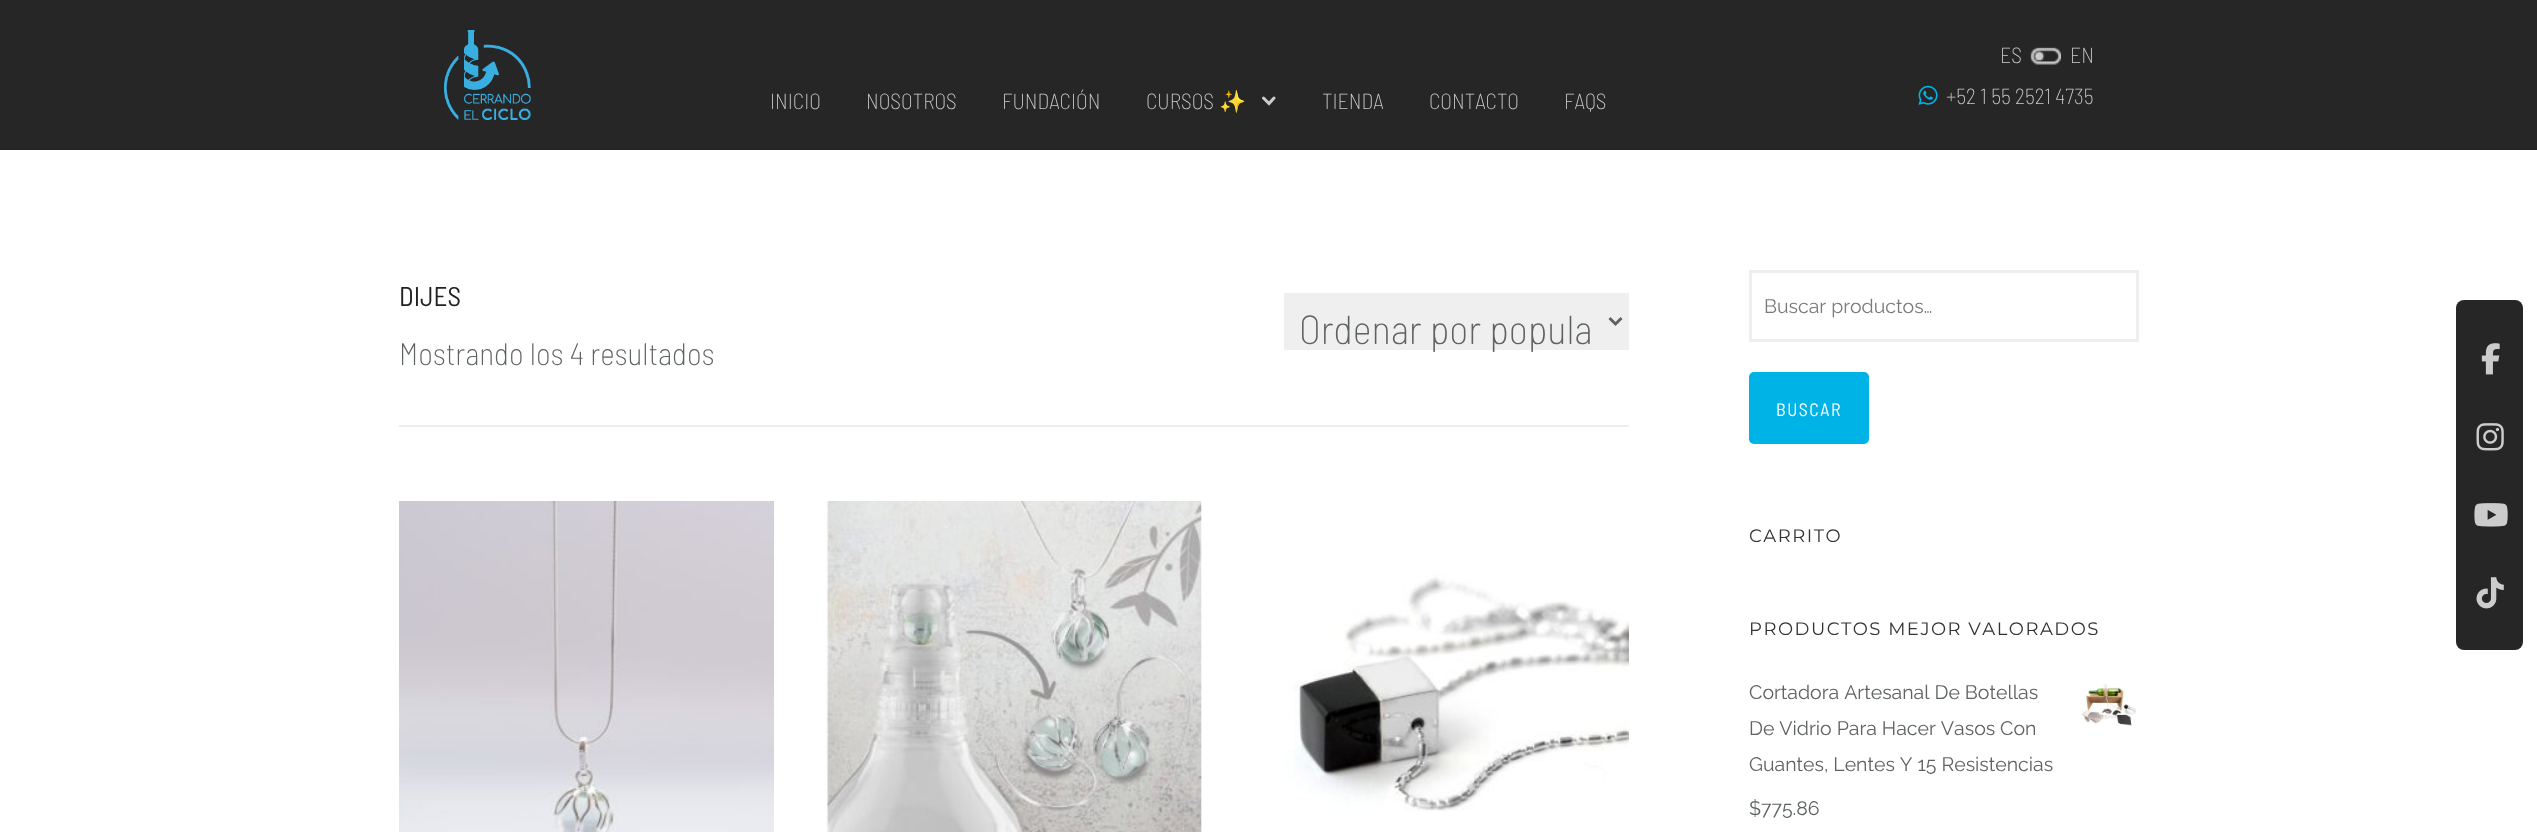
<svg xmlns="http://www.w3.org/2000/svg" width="2537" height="832">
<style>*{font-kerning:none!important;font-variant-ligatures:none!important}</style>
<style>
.a{font:200 21.75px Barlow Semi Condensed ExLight;fill:#ccc}
.b{font:21.75px Noto Color Emoji;fill:#ccc}
.c{font:27px Barlow Semi Condensed;fill:#222}
.d{font:200 40.5px Barlow Semi Condensed ExLight;fill:#5f6263}
.e{font:200 31.25px Barlow Semi Condensed ExLight;fill:#5f6263}
.f{font:19.5px Raleway;fill:#7a7a7a}
.g{font:18px Barlow Semi Condensed;letter-spacing:1.5px;fill:#fff}
.h{font:18px Montserrat;letter-spacing:1.5px;fill:#333}
.i{font:19.5px Raleway;fill:#5f6263}
</style>
<rect width="100%" height="100%" fill="#fff"/>
<path fill="#262626" d="M0 0h2537v150H0z"/>
<image href="1.png" x="444" y="30" width="87" height="90"/>
<path fill="none" stroke="#ccc" stroke-width="3" stroke-linecap="round" d="M1274 98l-5 5.5l-5.5-5.5"/>
<image href="2.png" x="2030" y="47" width="31" height="18"/>
<image href="3.png" x="1918" y="85" width="20" height="20"/>
<path fill="#efefef" d="M1284 293h345v57H1284z"/>
<path fill="none" stroke="#5f6263" stroke-width="3" d="M1609.5 318l6 6l6-6"/>
<path fill="#eee" d="M399 425h1230v2H399z"/>
<image href="4.png" x="399" y="501" width="375" height="331"/>
<path fill="#fafbfd" d="M1201 501h1v331H1201z"/>
<image href="5.png" x="826" y="501" width="376" height="331"/>
<image href="6.png" x="1254" y="501" width="375" height="331"/>
<path fill="none" stroke="#eee" stroke-width="3" d="M1750.5 271.5h387v69H1750.5z"/>
<rect fill="#00b3e6" x="1749" y="372" width="120" height="72" rx="5"/>
<image href="7.png" x="2081" y="683" width="56" height="43"/>
<rect fill="#262626" x="2456" y="300" width="67" height="350" rx="8"/>
<image href="8.png" x="2481" y="343" width="19" height="32"/>
<image href="9.png" x="2476" y="423" width="28" height="28"/>
<image href="10.png" x="2474" y="503" width="34" height="24"/>
<image href="11.png" x="2476" y="577" width="28" height="32"/>
<text class="a" x="770" y="109">INICIO</text>
<text class="a" x="866" y="109">NOSOTROS</text>
<text class="a" x="1002" y="109">FUNDACIÓN</text>
<text class="a" x="1146" y="109">CURSOS</text>
<text class="b" x="1219" y="109">✨</text>
<text class="a" x="1322" y="109">TIENDA</text>
<text class="a" x="1429" y="109">CONTACTO</text>
<text class="a" x="1564" y="109">FAQS</text>
<text class="a" x="2000" y="63">ES</text>
<text class="a" x="2070" y="63">EN</text>
<text class="a" x="1946" y="104">+52 1 55 2521 4735</text>
<text class="c" x="399" y="306">DIJES</text>
<text class="d" x="1299" y="344">Ordenar por popula</text>
<text class="e" x="399" y="365">Mostrando los 4 resultados</text>
<text class="f" x="1764" y="313">Buscar productos…</text>
<text class="g" x="1776" y="416">BUSCAR</text>
<text class="h" x="1749" y="542">CARRITO</text>
<text class="h" x="1749" y="635">PRODUCTOS MEJOR VALORADOS</text>
<text class="i" x="1749" y="699">Cortadora Artesanal De Botellas</text>
<text class="i" x="1749" y="735">De Vidrio Para Hacer Vasos Con</text>
<text class="i" x="1749" y="771">Guantes, Lentes Y 15 Resistencias</text>
<text class="i" x="1749" y="815">$775.86</text>
</svg>
